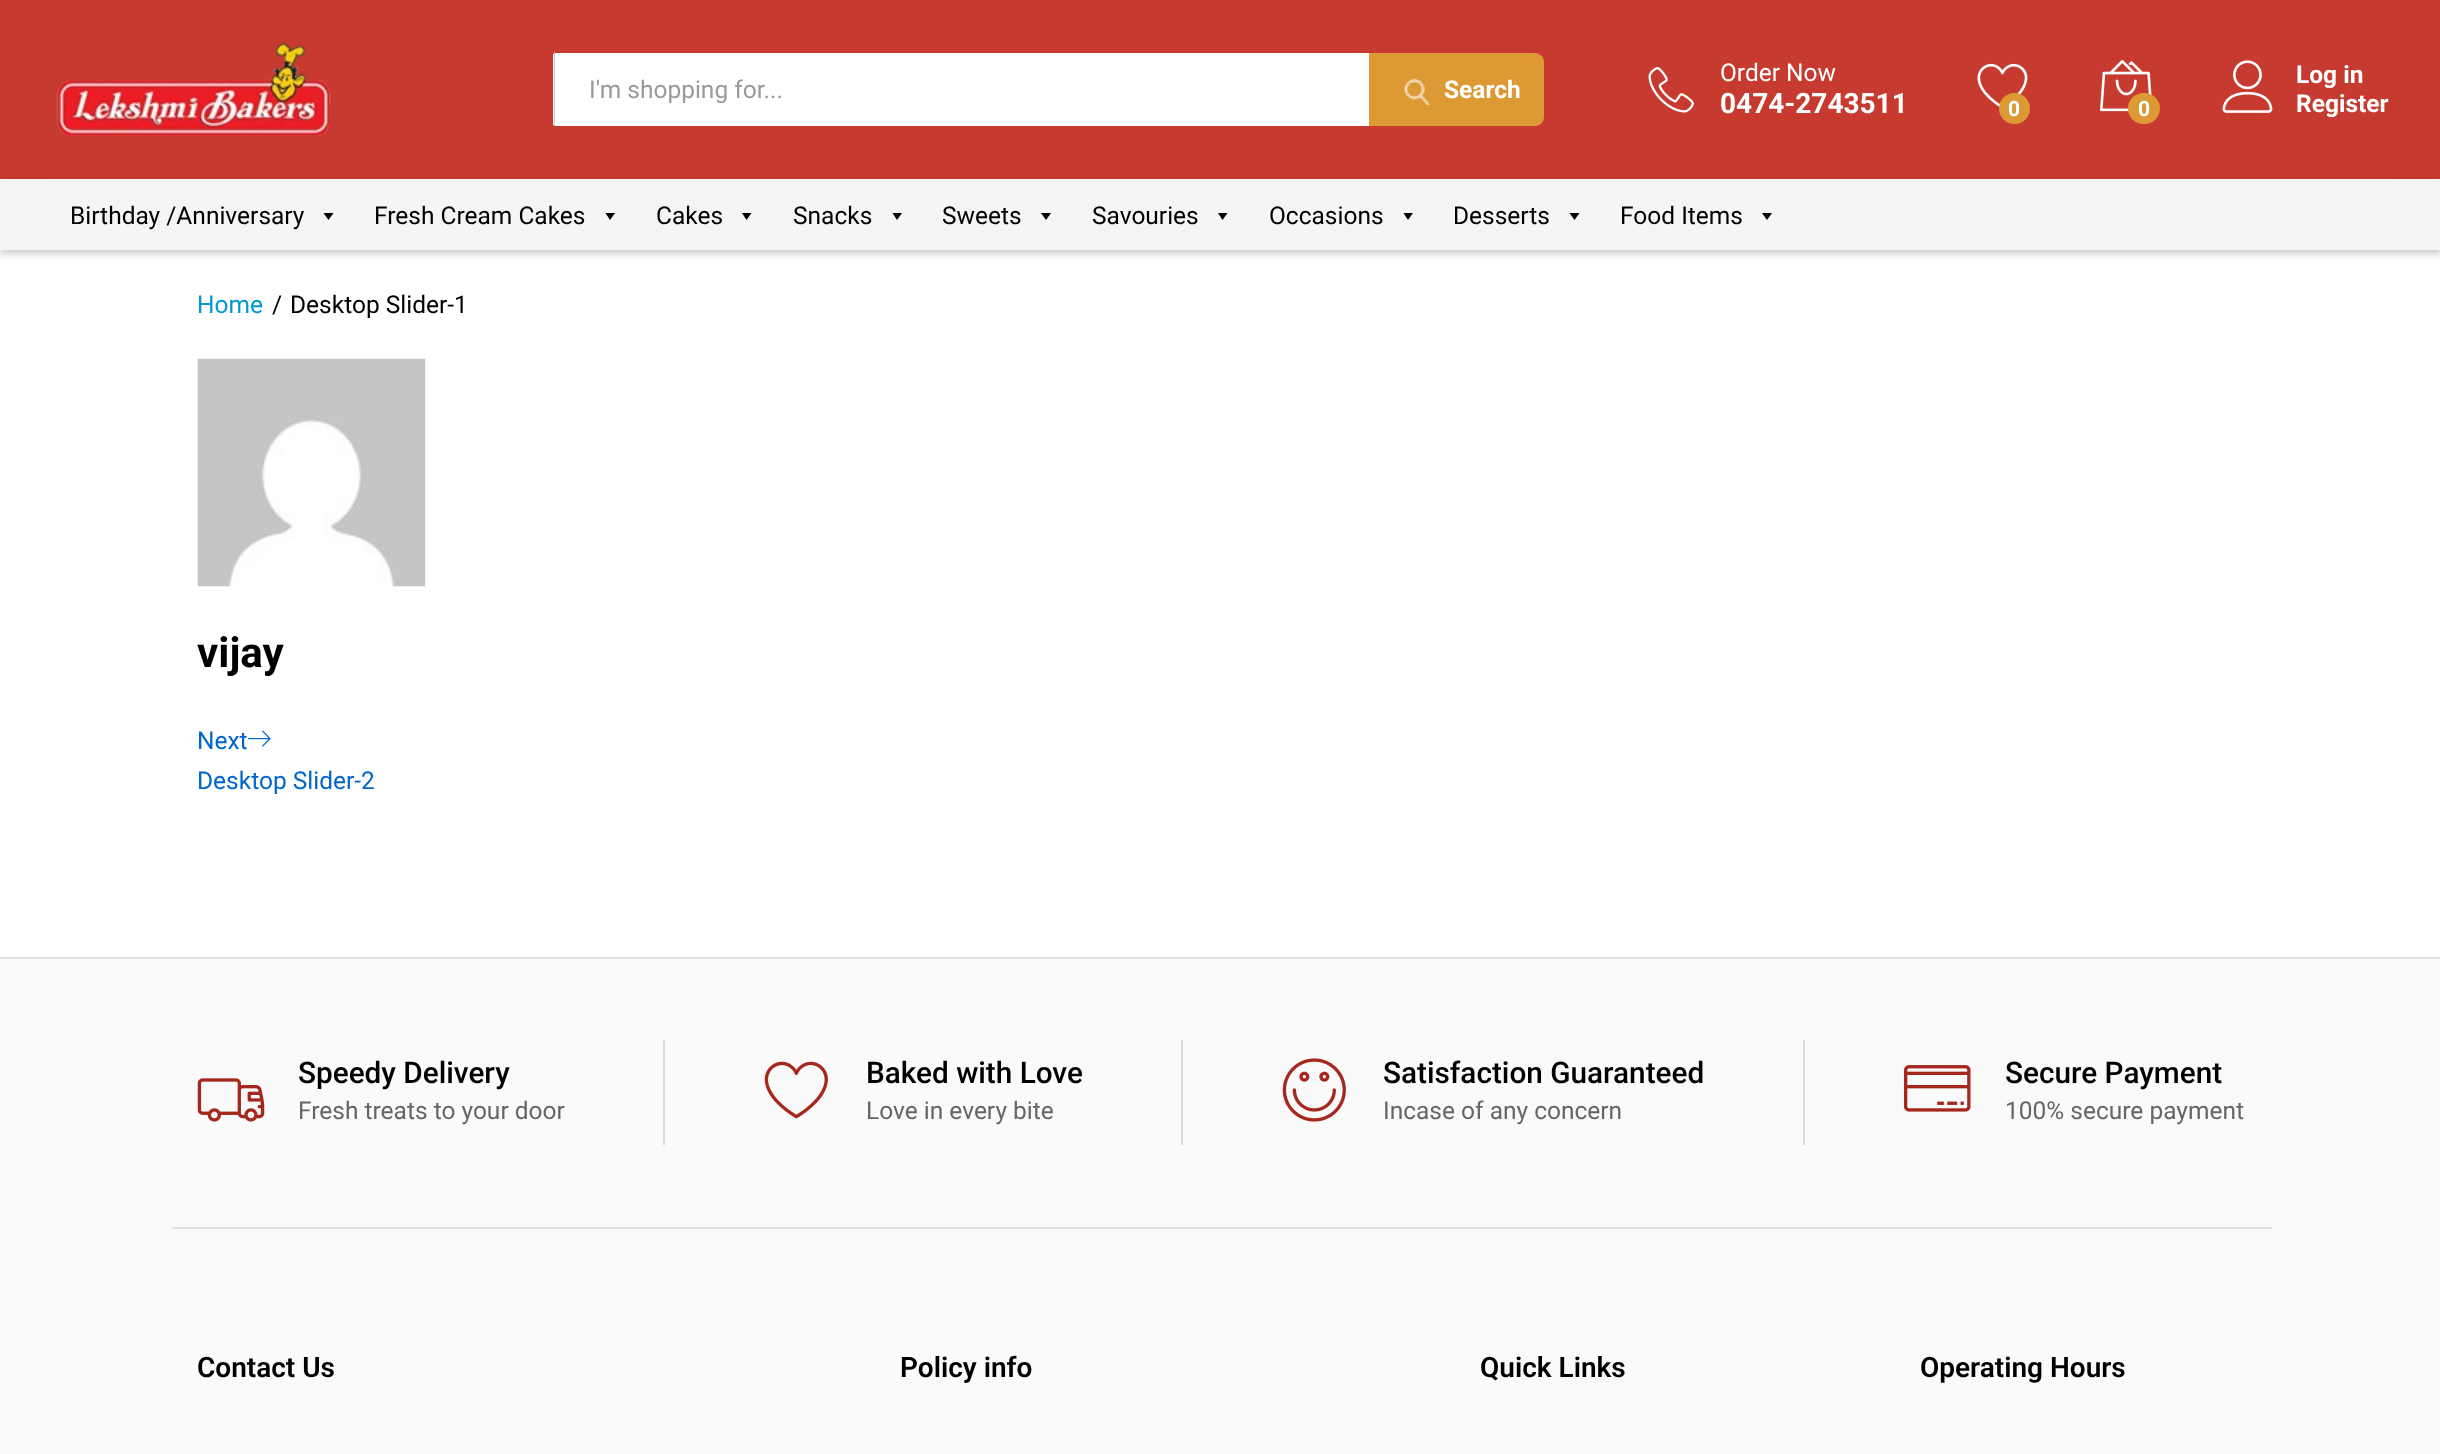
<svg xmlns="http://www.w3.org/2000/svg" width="2440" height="1454">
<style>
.a{font:24.5px Roboto;fill:#999}
.b{font:bold 24.5px Roboto;fill:#fff}
.c{font:24.5px Roboto;fill:#fff}
.d{font:bold 28px Roboto;fill:#fff}
.e{font:bold 21px Roboto;fill:#fff}
.f{font:24.5px Roboto;fill:#000}
.g{font:24.5px Roboto;fill:#09c}
.h{font:bold 42px Roboto;fill:#000}
.i{font:24.5px Roboto;fill:#06c}
.j{font:500 29.75px Roboto;fill:#000}
.k{font:24.5px Roboto;fill:#666}
.l{font:600 28px Roboto;fill:#000}
</style>
<rect width="100%" height="100%" fill="#fff"/>
<path fill="#c63a30" d="M0 0h2440v179H0z"/>
<image href="1.png" x="56" y="42" width="275" height="95"/>
<path fill="#fff" d="M555 53v73c-1 0-2-1-2-2v-69c0-1 1-2 2-2z"/>
<path fill="#ccc" d="M555 52v74l-1-1v-72z"/>
<path fill="#fff" d="M555 53h814v73H555z"/>
<path fill="#d93" d="M1369 53h166c5 0 9 4 9 9v55c0 5-4 9-9 9h-166z"/>
<image href="2.png" x="1403" y="78" width="27" height="27"/>
<image href="3.png" x="1648" y="67" width="46" height="46"/>
<image href="4.png" x="1977" y="63" width="51" height="45"/>
<circle fill="#d93" cx="2014.5" cy="108.5" r="15.5"/>
<image href="5.png" x="2100" y="60" width="52" height="52"/>
<rect fill="#d93" x="2128" y="93" width="32" height="31" rx="15.5"/>
<image href="6.png" x="2222" y="60" width="51" height="53"/>
<path fill="#00000033" filter="blur(3.5px)" d="M0 182h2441v72H0z"/>
<path fill="#f5f5f5" d="M0 181h2440v69H0z"/>
<path fill="#f8f8f8" d="M0 179h2440v2H0z"/>
<path fill="#f5f5f5" d="M53 180h2336v1H53z"/>
<path fill="#000" d="M333.5 213l-5 7l-5-7z"/>
<path fill="#000" d="M615 213l-5 7l-4.5-7z"/>
<path fill="#000" d="M751.5 213l-5 7l-4.5-7z"/>
<path fill="#000" d="M902 213l-5 7l-4.5-7z"/>
<path fill="#000" d="M1051 213l-5 7l-5-7z"/>
<path fill="#000" d="M1227.5 213l-5 7l-4.5-7z"/>
<path fill="#000" d="M1413 213l-5 7l-4.5-7z"/>
<path fill="#000" d="M1579.5 213l-5 7l-5-7z"/>
<path fill="#000" d="M1772 213l-5 7l-5-7z"/>
<image href="7.png" x="197" y="358" width="229" height="229"/>
<image href="8.png" x="248" y="730" width="23" height="17"/>
<path fill="#e1e1e1" d="M0 957h2440v2H0z"/>
<path fill="#fafafa" d="M0 959h2440v495H0z"/>
<path fill="#e1e1e1" d="M172 1227h2100v2H172z"/>
<image href="9.png" x="197" y="1078" width="68" height="44"/>
<path fill="#dadada" d="M663 1040h2v105H663z"/>
<image href="10.png" x="764" y="1061" width="64" height="58"/>
<path fill="#dadada" d="M1181 1040h2v105H1181z"/>
<image href="11.png" x="1282" y="1058" width="64" height="64"/>
<path fill="#dadada" d="M1803 1040h2v105H1803z"/>
<image href="12.png" x="1904" y="1065" width="67" height="47"/>
<text class="a" x="589" y="98">I'm shopping for...</text>
<text class="b" x="1444" y="98">Search</text>
<text class="c" x="1720" y="81">Order Now</text>
<text class="d" x="1720" y="113">0474-2743511</text>
<text class="e" x="2008" y="116">0</text>
<text class="e" x="2138" y="116">0</text>
<text class="b" x="2296" y="83">Log in</text>
<text class="b" x="2296" y="112">Register</text>
<text class="f" x="70" y="224">Birthday /Anniversary</text>
<text class="f" x="374" y="224">Fresh Cream Cakes</text>
<text class="f" x="656" y="224">Cakes</text>
<text class="f" x="793" y="224">Snacks</text>
<text class="f" x="942" y="224">Sweets</text>
<text class="f" x="1092" y="224">Savouries</text>
<text class="f" x="1269" y="224">Occasions</text>
<text class="f" x="1453" y="224">Desserts</text>
<text class="f" x="1620" y="224">Food Items</text>
<text class="g" x="197" y="313">Home</text>
<text class="f" x="272" y="313">/</text>
<text class="f" x="290" y="313">Desktop Slider-1</text>
<text class="h" x="197" y="667">vijay</text>
<text class="i" x="197" y="749">Next</text>
<text class="i" x="197" y="789">Desktop Slider-2</text>
<text class="j" x="298" y="1083">Speedy Delivery</text>
<text class="k" x="298" y="1119">Fresh treats to your door</text>
<text class="j" x="866" y="1083">Baked with Love</text>
<text class="k" x="866" y="1119">Love in every bite</text>
<text class="j" x="1383" y="1083">Satisfaction Guaranteed</text>
<text class="k" x="1383" y="1119">Incase of any concern</text>
<text class="j" x="2005" y="1083">Secure Payment</text>
<text class="k" x="2005" y="1119">100% secure payment</text>
<text class="l" x="197" y="1377">Contact Us</text>
<text class="l" x="900" y="1377">Policy info</text>
<text class="l" x="1480" y="1377">Quick Links</text>
<text class="l" x="1920" y="1377">Operating Hours</text>
</svg>
